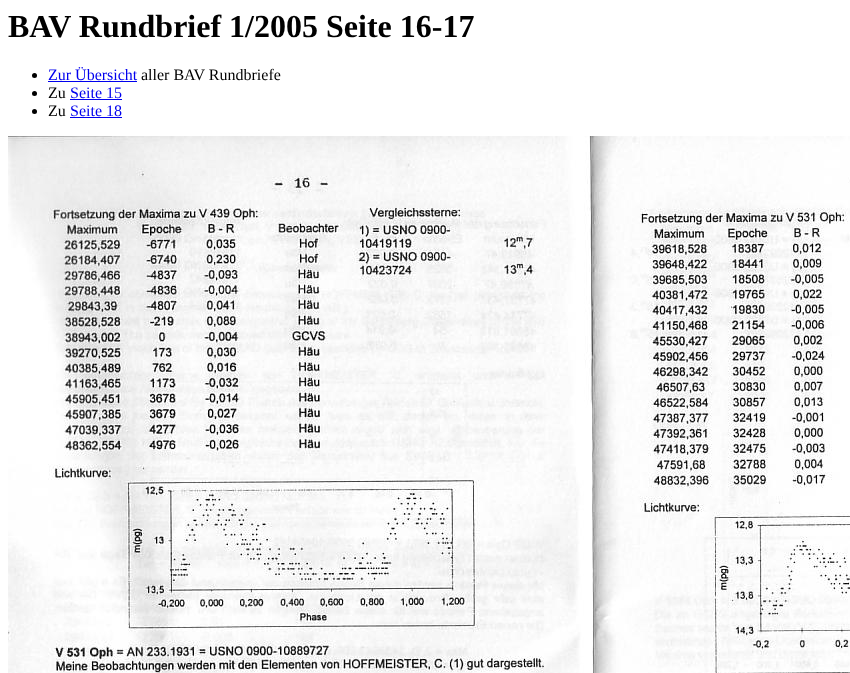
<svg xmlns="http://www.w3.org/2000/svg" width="850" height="673">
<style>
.a{font:bold 32px Liberation Serif;fill:#000}
.b{font:16px Liberation Serif;fill:#00e}
.c{font:16px Liberation Serif;fill:#000}
</style>
<rect width="100%" height="100%" fill="#fff"/>
<circle fill="#000" cx="34.5" cy="75.5" r="2.5"/>
<path fill="#00e" d="M48 81h89v1H48z"/>
<circle fill="#000" cx="34.5" cy="93.5" r="2.5"/>
<path fill="#00e" d="M70 99h52v1H70z"/>
<circle fill="#000" cx="34.5" cy="111.5" r="2.5"/>
<path fill="#00e" d="M70 117h52v1H70z"/>
<image href="1.png" x="8" y="136" width="842" height="537"/>
<text class="a" x="8" y="37">BAV Rundbrief 1/2005 Seite 16-17</text>
<text class="b" x="48" y="80">Zur Übersicht</text>
<text class="c" x="141" y="80">aller BAV Rundbriefe</text>
<text class="c" x="48" y="98">Zu</text>
<text class="b" x="70" y="98">Seite 15</text>
<text class="c" x="48" y="116">Zu</text>
<text class="b" x="70" y="116">Seite 18</text>
</svg>
